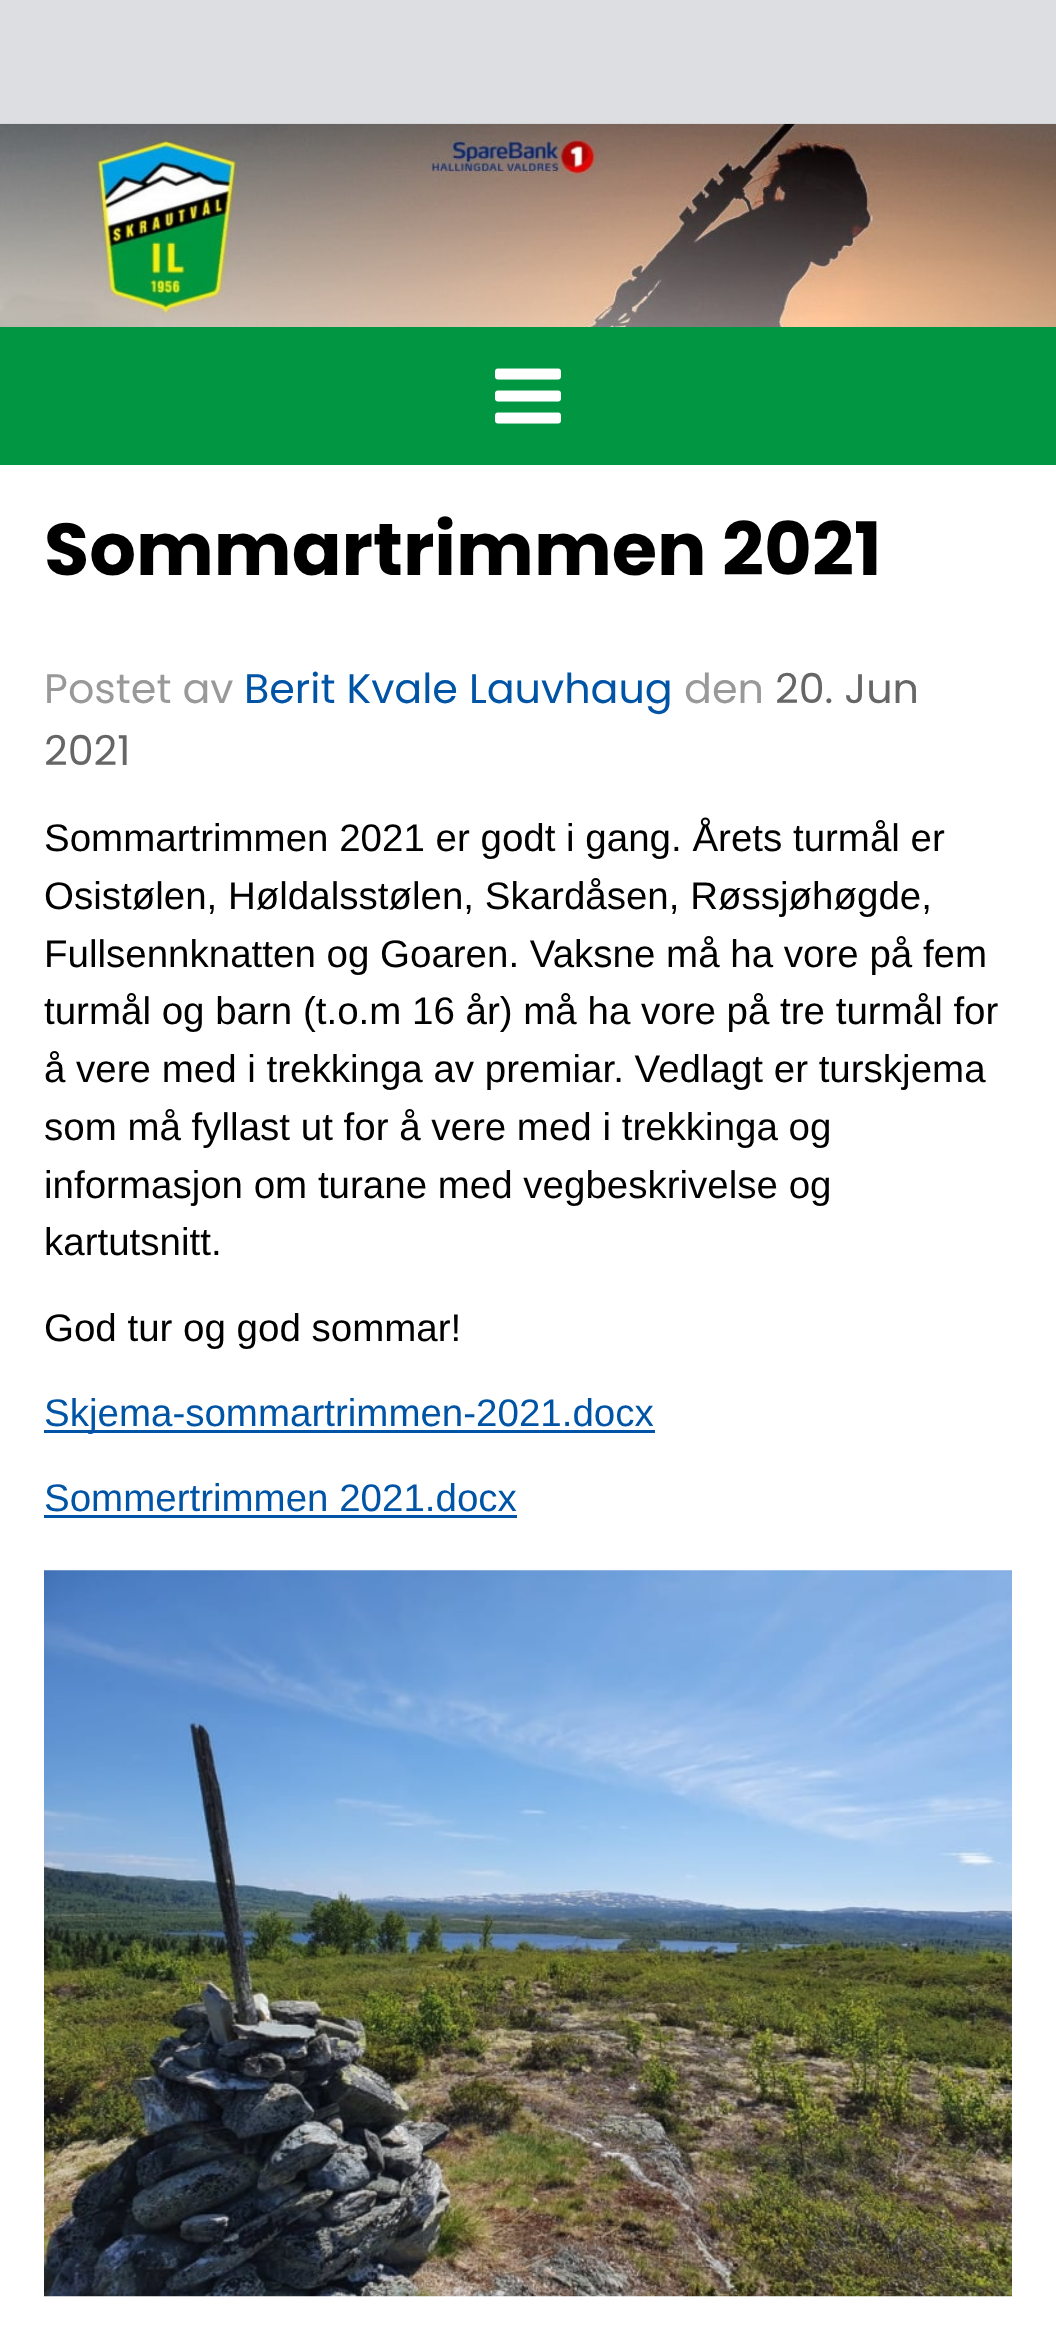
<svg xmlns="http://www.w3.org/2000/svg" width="1056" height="2333">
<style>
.a{font:bold 73.5px Poppins;fill:#000}
.b{font:41.25px Poppins;fill:#999}
.c{font:41.25px Poppins;fill:#0054a6}
.d{font:41.25px Poppins;fill:#666}
.e{font:38.5px Liberation Sans;fill:#000}
.f{font:38.5px Liberation Sans;fill:#0054a6}
</style>
<rect width="100%" height="100%" fill="#dddee2"/>
<image href="1.png" x="0" y="123" width="1056" height="204"/>
<path fill="#019642" d="M0 327h1056v138H0z"/>
<image href="2.png" x="495" y="368" width="66" height="56"/>
<path fill="#fff" d="M0 465h1056v1868H0z"/>
<path fill="#0054a6" d="M44 1430h611v3H44z"/>
<path fill="#0054a6" d="M44 1515h473v3H44z"/>
<image href="3.png" x="44" y="1570" width="968" height="727"/>
<text class="a" x="44" y="575">Sommartrimmen 2021</text>
<text class="b" x="44" y="703">Postet av</text>
<text class="c" x="244" y="703">Berit Kvale Lauvhaug</text>
<text class="b" x="684" y="703">den</text>
<text class="d" x="775" y="703">20. Jun</text>
<text class="d" x="44" y="765">2021</text>
<text class="e" x="44" y="851">Sommartrimmen 2021 er godt i gang. Årets turmål er</text>
<text class="e" x="44" y="909">Osistølen, Høldalsstølen, Skardåsen, Røssjøhøgde,</text>
<text class="e" x="44" y="967">Fullsennknatten og Goaren. Vaksne må ha vore på fem</text>
<text class="e" x="44" y="1024">turmål og barn (t.o.m 16 år) må ha vore på tre turmål for</text>
<text class="e" x="44" y="1082">å vere med i trekkinga av premiar. Vedlagt er turskjema</text>
<text class="e" x="44" y="1140">som må fyllast ut for å vere med i trekkinga og</text>
<text class="e" x="44" y="1198">informasjon om turane med vegbeskrivelse og</text>
<text class="e" x="44" y="1255">kartutsnitt.</text>
<text class="e" x="44" y="1341">God tur og god sommar!</text>
<text class="f" x="44" y="1426">Skjema-sommartrimmen-2021.docx</text>
<text class="f" x="44" y="1511">Sommertrimmen 2021.docx</text>
</svg>
